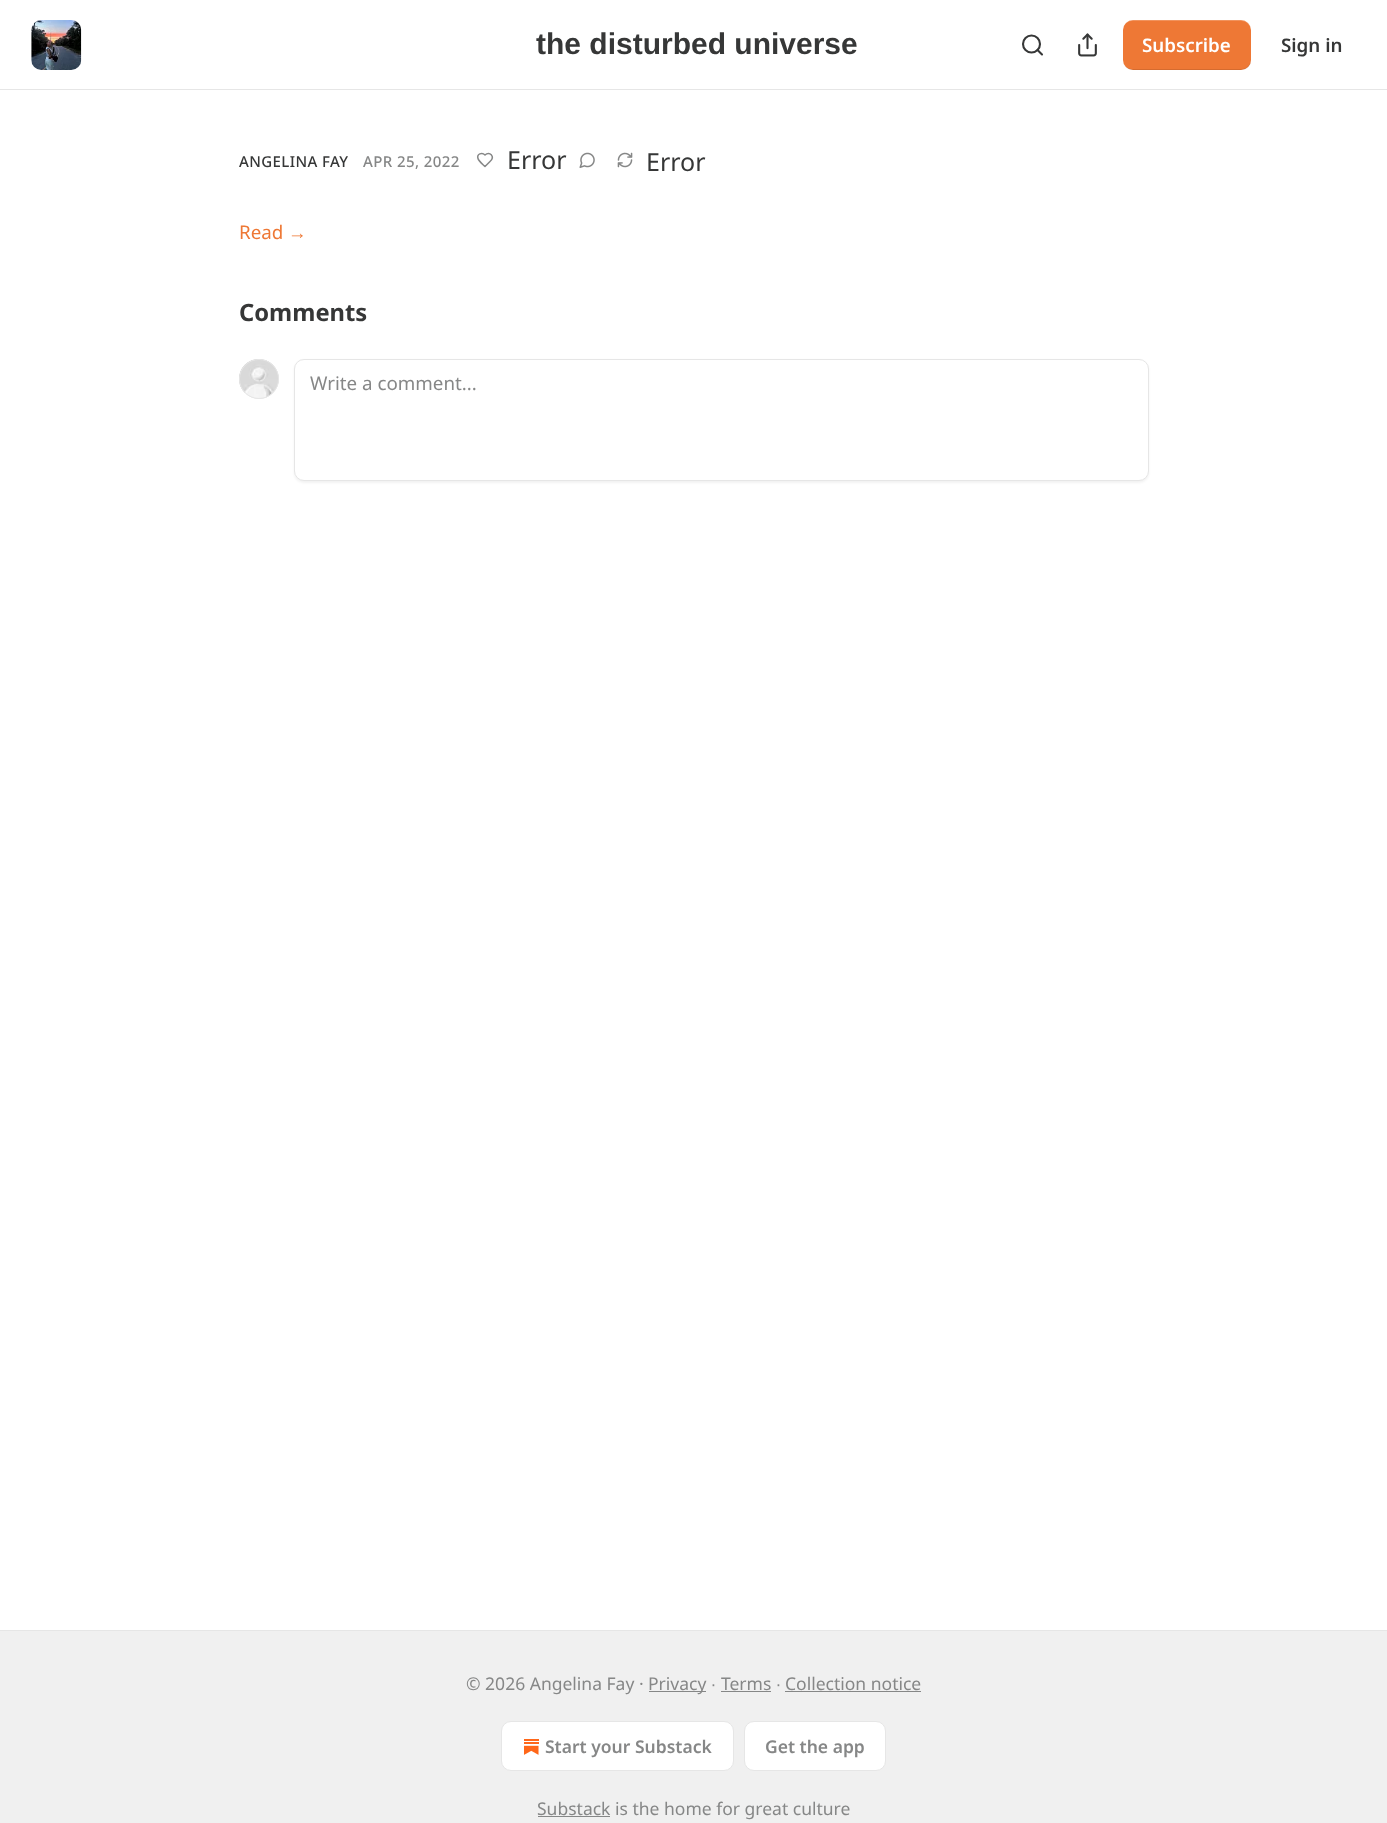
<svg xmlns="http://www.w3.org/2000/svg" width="1387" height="1823">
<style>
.a{font:bold 30px Liberation Sans;fill:#363737}
.b{font:600 18.75px Noto Sans;fill:#fff}
.c{font:600 18.75px Noto Sans;fill:#363737}
.d{font:500 15px Noto Sans;letter-spacing:0.4px;fill:#363737}
.e{font:500 15px Noto Sans;letter-spacing:0.4px;fill:#868787}
.f{font:25px Noto Sans;fill:#363737}
.g{font:18.75px Noto Sans;fill:#ee7835}
.h{font:18.75px Liberation Sans;fill:#ee7835}
.i{font:bold 23.75px Noto Sans;fill:#363737}
.j{font:18.75px Noto Sans;fill:#868787}
.k{font:17.5px Noto Sans;fill:#868787}
.l{font:17.5px Liberation Sans;fill:#868787}
.m{font:600 17.5px Noto Sans;fill:#868787}
</style>
<rect width="100%" height="100%" fill="#fff"/>
<path fill="#e6e6e6" d="M0 89h1387v1H0z"/>
<image href="1.png" x="31" y="20" width="51" height="50"/>
<circle fill="none" stroke="#363737" stroke-width="2.1" cx="1031.5" cy="44" r="8.5"/>
<path fill="none" stroke="#363737" stroke-width="2.1" stroke-linecap="round" stroke-linejoin="round" d="M1042 54.5l-4.5-4.5"/>
<image href="2.png" x="1078" y="33" width="19" height="24"/>
<rect fill="#ee7835" x="1123" y="20" width="128" height="50" rx="10"/>
<path fill="#0000001a" d="M1124 65c2 3 5 5 9 5h108c6 0 10-4 10-10v-1c0 5-4 10-10 10h-109c-3 0-6-2-8-4z"/>
<path fill="#ffffff33" d="M1132 21h109c6 0 10 5 10 10v-1c0-6-4-10-10-10h-108c-4 0-7 2-9 5c2-2 5-4 8-4z"/>
<path fill="none" stroke="#868787" stroke-width="1.5" stroke-linecap="round" stroke-linejoin="round" d="M490 161.5c5.5-5-.5-11-5-6.5c-3-3-8.5-1-7 3.5c.5 2.5 5 6 7 8z"/>
<image href="3.png" x="579" y="152" width="16" height="16"/>
<image href="4.png" x="617" y="152" width="16" height="16"/>
<circle fill="none" stroke="#e6e6e6" cx="259" cy="379" r="19.5"/>
<image href="5.png" x="239" y="359" width="40" height="39"/>
<circle fill="none" stroke="#e6e6e6" cx="259" cy="379" r="19.5"/>
<rect fill="#0000000d" filter="blur(1px)" x="294" y="360" width="855" height="123" rx="10"/>
<rect fill="#fff" stroke="#e6e6e6" x="294.5" y="359.5" width="854" height="121" rx="9.5"/>
<path fill="#f0f0f0" d="M0 1631h1387v192H0z"/>
<path fill="#e6e6e6" d="M0 1630h1387v1H0z"/>
<path fill="#868787" d="M649 1691h57v1H649z"/>
<path fill="#868787" d="M721 1691h50v1H721z"/>
<path fill="#868787" d="M785 1691h136v1H785z"/>
<rect fill="#fff" stroke="#e6e6e6" x="501.5" y="1721.5" width="232" height="49" rx="9.5"/>
<image href="6.png" x="524" y="1739" width="15" height="16"/>
<rect fill="#fff" stroke="#e6e6e6" x="744.5" y="1721.5" width="141" height="49" rx="9.5"/>
<path fill="#868787" d="M538 1816h72v1H538z"/>
<text class="a" x="536" y="54">the disturbed universe</text>
<text class="b" x="1142" y="52">Subscribe</text>
<text class="c" x="1281" y="52">Sign in</text>
<text class="d" x="239" y="167">ANGELINA FAY</text>
<text class="e" x="363" y="167">APR 25, 2022</text>
<text class="f" x="507" y="169">Error</text>
<text class="f" x="646" y="171">Error</text>
<text class="g" x="239" y="239">Read</text>
<text class="h" x="288" y="239">→</text>
<text class="i" x="239" y="321">Comments</text>
<text class="j" x="310" y="390">Write a comment...</text>
<text class="k" x="466" y="1690">© 2026 Angelina Fay ·</text>
<text class="k" x="648" y="1690">Privacy</text>
<text class="l" x="711" y="1690">∙</text>
<text class="k" x="721" y="1690">Terms</text>
<text class="l" x="776" y="1690">∙</text>
<text class="k" x="785" y="1690">Collection notice</text>
<text class="m" x="545" y="1753">Start your Substack</text>
<text class="m" x="765" y="1753">Get the app</text>
<text class="k" x="537" y="1815">Substack is the home for great culture</text>
</svg>
